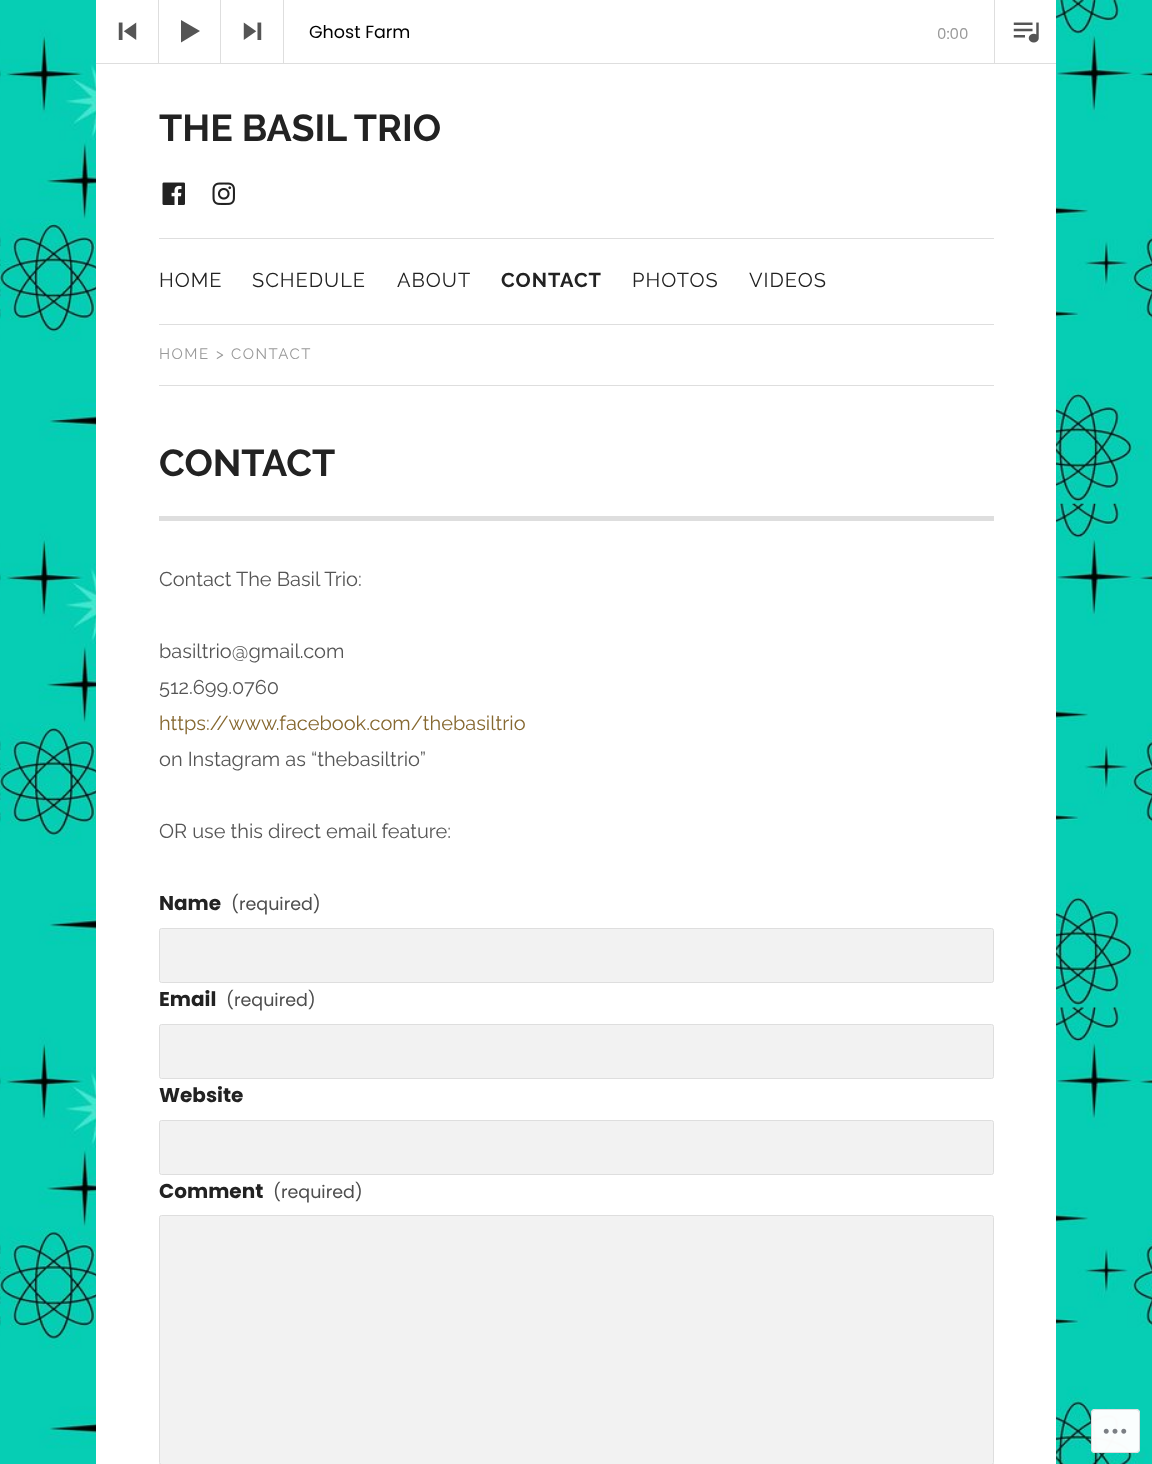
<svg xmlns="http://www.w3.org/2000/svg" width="1152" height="1464">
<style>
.a{font:17.5px Poppins;fill:#000}
.b{font:15px Poppins;fill:#999}
.c{font:bold 37.5px Raleway;fill:#222}
.d{font:20px Raleway;letter-spacing:1px;fill:#222}
.e{font:bold 20px Raleway;letter-spacing:1px;fill:#222}
.f{font:15px Raleway;letter-spacing:1.5px;fill:#999}
.g{font:20px Raleway;fill:#555}
.h{font:20px Raleway;fill:#866830}
.i{font:bold 20px Poppins;fill:#222}
.j{font:17.5px Poppins;fill:#4e4e4e}
</style>
<rect width="100%" height="100%" fill="#fff"/>
<image href="1.png" x="0" y="0" width="1152" height="1464"/>
<path fill="#fff" d="M96 0h960v1464H96z"/>
<path fill="#dedede" d="M158 0h1v63H158z"/>
<image href="2.png" x="118" y="22" width="19" height="18"/>
<path fill="#dedede" d="M220 0h1v63H220z"/>
<path fill="#555" d="M181 20v22.5l19-11.5z"/>
<path fill="#dedede" d="M283 0h1v63H283z"/>
<image href="3.png" x="243" y="22" width="19" height="18"/>
<path fill="#dedede" d="M994 0h1v63H994z"/>
<image href="4.png" x="1013" y="22" width="26" height="21"/>
<path fill="#dedede" d="M96 63h960v1H96z"/>
<path fill="#dedede" d="M159 385h835v1H159z"/>
<image href="5.png" x="162" y="182" width="23" height="23"/>
<image href="6.png" x="212" y="182" width="23" height="23"/>
<path fill="#dedede" d="M159 238h835v1H159z"/>
<path fill="#dedede" d="M159 324h835v1H159z"/>
<path fill="#dedede" d="M159 516h835v5H159z"/>
<rect fill="#f2f2f2" stroke="#dedede" x="159.5" y="928.5" width="834" height="54" rx="2"/>
<rect fill="#f2f2f2" stroke="#dedede" x="159.5" y="1024.5" width="834" height="54" rx="2"/>
<rect fill="#f2f2f2" stroke="#dedede" x="159.5" y="1120.5" width="834" height="54" rx="2"/>
<rect fill="#f2f2f2" stroke="#dedede" x="159.5" y="1215.5" width="834" height="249" rx="2"/>
<rect fill="#fffffffa" x="1091" y="1409" width="49" height="44" rx="4"/>
<rect fill="none" stroke="#dcdcdefa" x="1091.5" y="1409.5" width="48" height="43" rx="3.5"/>
<image href="7.png" x="1103" y="1428" width="24" height="6"/>
<text class="a" x="309" y="38">Ghost Farm</text>
<text class="b" x="937" y="39">0:00</text>
<text class="c" x="159" y="141">THE BASIL TRIO</text>
<text class="d" x="159" y="287">HOME</text>
<text class="d" x="252" y="287">SCHEDULE</text>
<text class="d" x="397" y="287">ABOUT</text>
<text class="e" x="501" y="287">CONTACT</text>
<text class="d" x="632" y="287">PHOTOS</text>
<text class="d" x="749" y="287">VIDEOS</text>
<text class="f" x="159" y="359">HOME</text>
<text class="f" x="216" y="359">&gt;</text>
<text class="f" x="231" y="359">CONTACT</text>
<text class="c" x="159" y="476">CONTACT</text>
<text class="g" x="159" y="586">Contact The Basil Trio:</text>
<text class="g" x="159" y="658">basiltrio@gmail.com</text>
<text class="g" x="159" y="694">512.699.0760</text>
<text class="h" x="159" y="730">https://www.facebook.com/thebasiltrio</text>
<text class="g" x="159" y="766">on Instagram as “thebasiltrio”</text>
<text class="g" x="159" y="838">OR use this direct email feature:</text>
<text class="i" x="159" y="910">Name</text>
<text class="j" x="231" y="910">(required)</text>
<text class="i" x="159" y="1006">Email</text>
<text class="j" x="226" y="1006">(required)</text>
<text class="i" x="159" y="1102">Website</text>
<text class="i" x="159" y="1198">Comment</text>
<text class="j" x="273" y="1198">(required)</text>
</svg>
